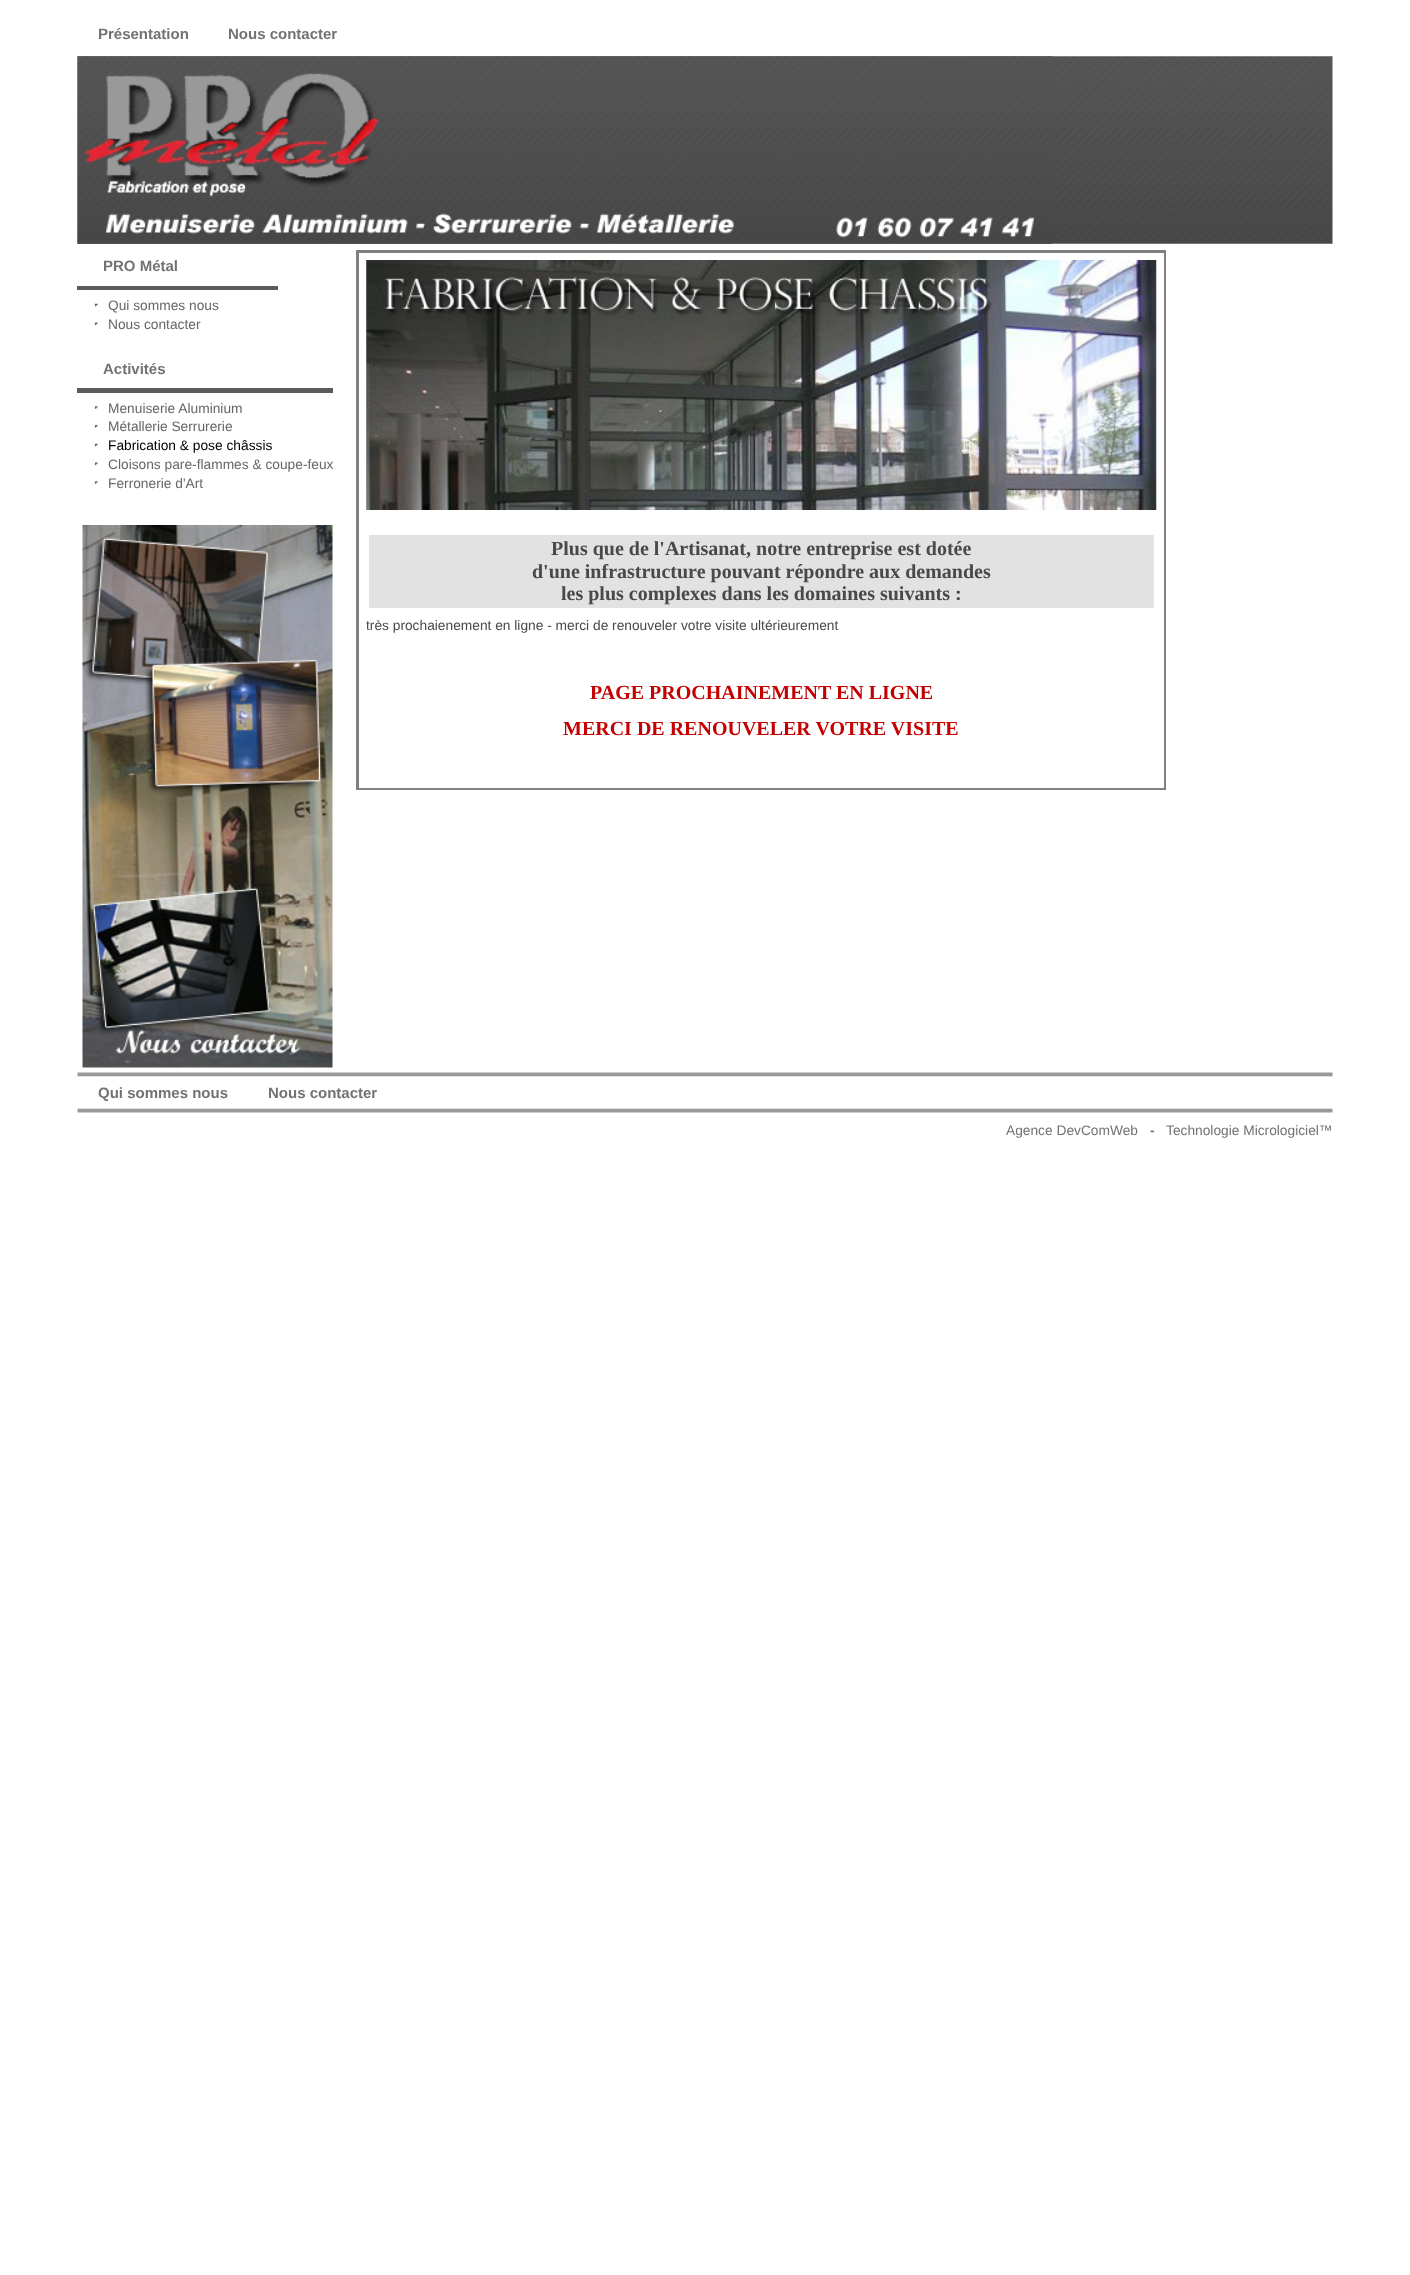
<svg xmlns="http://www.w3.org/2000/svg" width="1410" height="2275">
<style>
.a{font:bold 15px Liberation Sans;fill:#727272}
.b{font:13.75px Liberation Sans;fill:#666}
.c{font:13.75px Liberation Sans;fill:#000}
.d{font:bold 20px Liberation Serif;fill:#494949}
.e{font:13.75px Liberation Sans;fill:#494949}
.f{font:bold 20px Liberation Serif;fill:#c40000}
.g{font:13.75px Liberation Sans;fill:#727272}
.h{font:bold 13.75px Liberation Sans;fill:#727272}
</style>
<rect width="100%" height="100%" fill="#fff"/>
<image href="1.png" x="77" y="56" width="1256" height="188"/>
<image href="2.png" x="77" y="56" width="976" height="188"/>
<path fill="#5b5b5b" d="M77 286h201v4H77z"/>
<image href="3.png" x="94" y="303" width="4" height="4"/>
<image href="4.png" x="94" y="322" width="4" height="4"/>
<path fill="#5b5b5b" d="M77 388h256v5H77z"/>
<image href="5.png" x="94" y="406" width="4" height="3"/>
<image href="6.png" x="94" y="424" width="4" height="4"/>
<image href="3.png" x="94" y="443" width="4" height="4"/>
<image href="4.png" x="94" y="462" width="4" height="4"/>
<image href="5.png" x="94" y="481" width="4" height="3"/>
<image href="7.png" x="82" y="525" width="251" height="543"/>
<path fill="#808080" d="M356 250h810v540H356z"/>
<path fill="#fff" d="M359 253h805v535H359z"/>
<image href="8.png" x="366" y="260" width="791" height="250"/>
<path fill="#e2e2e2" d="M369 535h785v73H369z"/>
<image href="9.png" x="77" y="1072" width="1256" height="41"/>
<text class="a" x="98" y="39">Présentation</text>
<text class="a" x="228" y="39">Nous contacter</text>
<text class="a" x="103" y="271">PRO Métal</text>
<text class="b" x="108" y="310">Qui sommes nous</text>
<text class="b" x="108" y="329">Nous contacter</text>
<text class="a" x="103" y="374">Activités</text>
<text class="b" x="108" y="413">Menuiserie Aluminium</text>
<text class="b" x="108" y="431">Métallerie Serrurerie</text>
<text class="c" x="108" y="450">Fabrication &amp; pose châssis</text>
<text class="b" x="108" y="469">Cloisons pare-flammes &amp; coupe-feux</text>
<text class="b" x="108" y="488">Ferronerie d'Art</text>
<text class="d" x="551" y="555">Plus que de l'Artisanat, notre entreprise est dotée</text>
<text class="d" x="532" y="578">d'une infrastructure pouvant répondre aux demandes</text>
<text class="d" x="561" y="600">les plus complexes dans les domaines suivants :</text>
<text class="e" x="366" y="630">très prochaienement en ligne - merci de renouveler votre visite ultérieurement</text>
<text class="f" x="590" y="699">PAGE PROCHAINEMENT EN LIGNE</text>
<text class="f" x="563" y="735">MERCI DE RENOUVELER VOTRE VISITE</text>
<text class="a" x="98" y="1098">Qui sommes nous</text>
<text class="a" x="268" y="1098">Nous contacter</text>
<text class="g" x="1006" y="1135">Agence DevComWeb</text>
<text class="h" x="1150" y="1135">-</text>
<text class="g" x="1166" y="1135">Technologie Micrologiciel™</text>
</svg>
